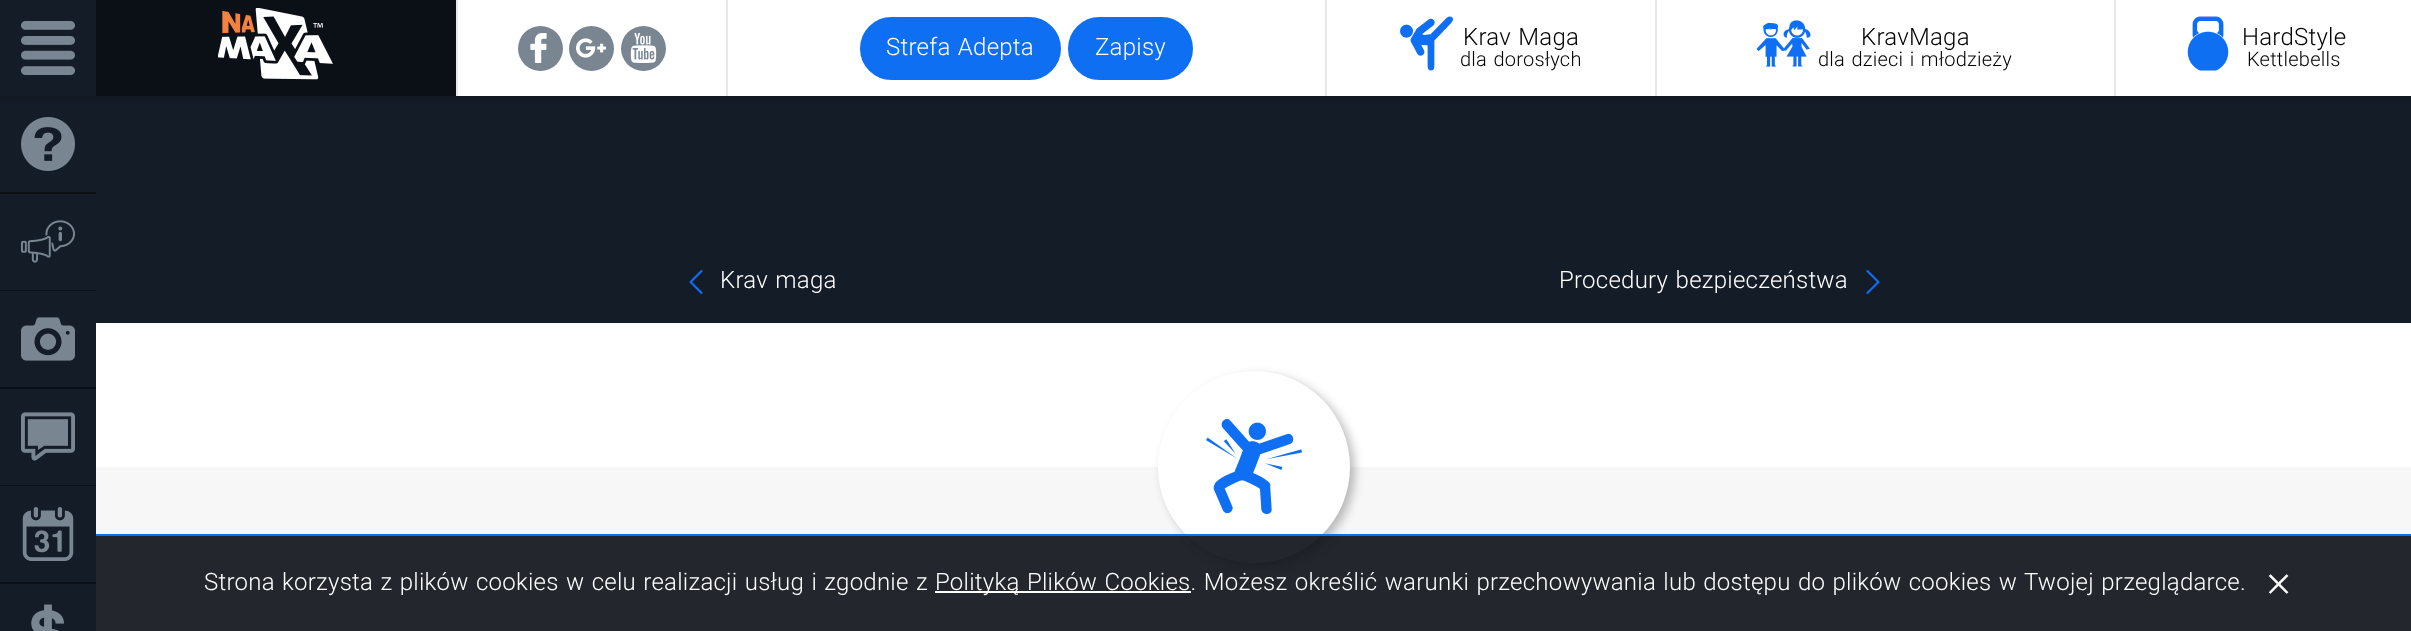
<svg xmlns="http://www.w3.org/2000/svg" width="2411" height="631">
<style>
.a{font:300 24px Roboto;letter-spacing:0.24px;fill:#fff}
.b{font:300 24px Roboto;letter-spacing:0.24px;fill:#000}
.c{font:300 20px Roboto;letter-spacing:0.24px;fill:#000}
.d{font:48px Liberation Serif;fill:#fff}
</style>
<rect width="100%" height="100%" fill="#fff"/>
<path fill="#141c27" d="M0 96h96v96H0z"/>
<path fill="#141c27" d="M96 96h2315v227H96z"/>
<path fill="#0000004d" filter="blur(3px)" d="M0 0h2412v96H0z"/>
<path fill="#fff" d="M458 0h1953v96H458z"/>
<path fill="#0b1016" d="M96 0h360v96H96z"/>
<path fill="#141c27" d="M0 0h96v96H0z"/>
<image href="1.png" x="21" y="21" width="54" height="54"/>
<image href="2.png" x="218" y="8" width="115" height="72"/>
<path fill="#e7e7e7" d="M456 0h2v96H456z"/>
<circle fill="#798692" cx="540.5" cy="48.5" r="22.5"/>
<image href="3.png" x="530" y="33" width="17" height="30"/>
<circle fill="#798692" cx="591.5" cy="48.5" r="22.5"/>
<image href="4.png" x="576" y="38" width="30" height="20"/>
<circle fill="#798692" cx="643.5" cy="48.5" r="22.5"/>
<image href="5.png" x="630" y="33" width="27" height="30"/>
<path fill="#e7e7e7" d="M726 0h2v96H726z"/>
<rect fill="#0e6ff2" stroke="#0e6ff2" stroke-width="3" x="861.5" y="18.5" width="198" height="60" rx="30"/>
<rect fill="#0e6ff2" stroke="#0e6ff2" stroke-width="3" x="1069.5" y="18.5" width="122" height="60" rx="30"/>
<path fill="#e7e7e7" d="M1325 0h2v96H1325z"/>
<image href="6.png" x="1400" y="16" width="53" height="55"/>
<path fill="#e7e7e7" d="M1655 0h2v96H1655z"/>
<image href="7.png" x="1756" y="20" width="55" height="47"/>
<path fill="#e7e7e7" d="M2114 0h2v96H2114z"/>
<image href="8.png" x="2187" y="16" width="42" height="55"/>
<path fill="#0b1016" d="M0 192h96v2H0z"/>
<image href="9.png" x="21" y="117" width="54" height="54"/>
<path fill="#141c27" d="M0 194h96v96H0z"/>
<path fill="#0b1016" d="M0 290h96v1H0z"/>
<image href="10.png" x="21" y="220" width="54" height="43"/>
<path fill="#141c27" d="M0 291h96v96H0z"/>
<path fill="#0b1016" d="M0 387h96v2H0z"/>
<image href="11.png" x="21" y="317" width="54" height="44"/>
<path fill="#141c27" d="M0 389h96v96H0z"/>
<path fill="#0b1016" d="M0 485h96v1H0z"/>
<image href="12.png" x="21" y="412" width="54" height="49"/>
<path fill="#141c27" d="M0 486h96v96H0z"/>
<path fill="#0b1016" d="M0 582h96v2H0z"/>
<image href="13.png" x="22" y="507" width="52" height="54"/>
<path fill="#141c27" d="M0 584h96v47H0z"/>
<image href="14.png" x="31" y="604" width="33" height="27"/>
<image href="15.png" x="689" y="270" width="14" height="24"/>
<image href="16.png" x="1866" y="270" width="14" height="24"/>
<path fill="#f7f7f7" d="M96 467h2315v164H96z"/>
<rect fill="#00000040" filter="blur(5px)" x="1163" y="375" width="192" height="192" rx="96"/>
<circle fill="#fff" cx="1254" cy="467" r="96"/>
<image href="17.png" x="1206" y="419" width="96" height="95"/>
<path fill="#0b1016e6" d="M96 536h2315v95H96z"/>
<path fill="#0e6ff2" d="M96 534h2315v2H96z"/>
<path fill="#fff" d="M935 591h256v2H935z"/>
<text class="a" x="886" y="55" word-spacing="1.25">Strefa Adepta</text>
<text class="a" x="1095" y="55">Zapisy</text>
<text class="b" x="1463" y="45" word-spacing="1.25">Krav Maga</text>
<text class="c" x="1460" y="66" word-spacing="1.25">dla dorosłych</text>
<text class="b" x="1861" y="45">KravMaga</text>
<text class="c" x="1818" y="66" word-spacing="1.25">dla dzieci i młodzieży</text>
<text class="b" x="2242" y="45">HardStyle</text>
<text class="c" x="2247" y="66">Kettlebells</text>
<text class="a" x="720" y="288" word-spacing="1.25">Krav maga</text>
<text class="a" x="1559" y="288" word-spacing="1.25">Procedury bezpieczeństwa</text>
<text class="a" x="204" y="590" word-spacing="1.25">Strona korzysta z plików cookies w celu realizacji usług i zgodnie z</text>
<text class="a" x="935" y="590" word-spacing="1.25">Polityką Plików Cookies. Możesz określić warunki przechowywania lub dostępu do plików cookies w Twojej przeglądarce.</text>
<text class="d" x="2265" y="600">×</text>
</svg>
